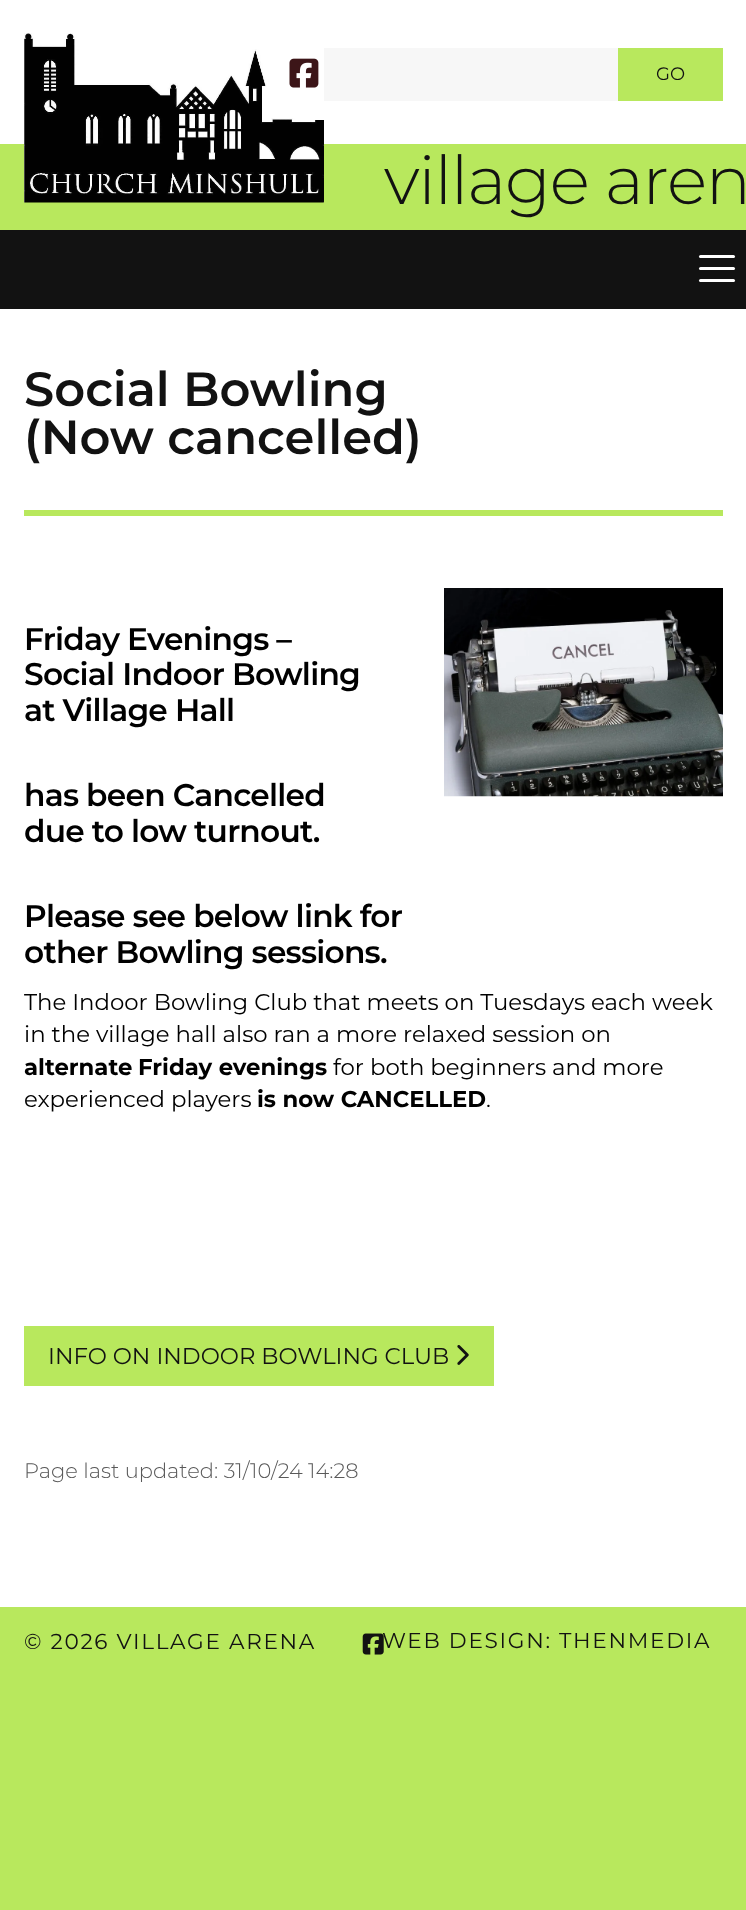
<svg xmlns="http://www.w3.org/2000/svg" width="746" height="1910">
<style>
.a{font:18px Montserrat;fill:#121212}
.b{font:300 67.25px Montserrat;letter-spacing:-1.25px;fill:#121212}
.c{font:600 48px Montserrat;fill:#121212}
.d{font:600 31.25px Montserrat;letter-spacing:-0.75px;fill:#000}
.e{font:22.8px Montserrat;fill:#000}
.f{font:bold 22.8px Montserrat;fill:#000}
.g{font:22.8px Montserrat;fill:#121212}
.h{font:300 21px Montserrat;fill:#595959}
.i{font:21.6px Montserrat;letter-spacing:1.7px;fill:#121212}
</style>
<rect width="100%" height="100%" fill="#b8e85d"/>
<path fill="#fff" d="M0 0h746v1607H0z"/>
<path fill="#b8e85d" d="M0 144h746v86H0z"/>
<image href="1.png" x="24" y="33" width="300" height="170"/>
<image href="2.png" x="289" y="58" width="30" height="30"/>
<path fill="#f7f7f7" d="M324 48h294v53H324z"/>
<path fill="#b8e85d" d="M618 48h105v53H618z"/>
<path fill="#121212" d="M0 230h746v79H0z"/>
<rect fill="#fff" x="699" y="255" width="36" height="3" rx="1.5"/>
<rect fill="#fff" x="699" y="267" width="36" height="3" rx="1.5"/>
<rect fill="#fff" x="699" y="279" width="36" height="3" rx="1.5"/>
<path fill="#b8e85d" d="M24 510h699v6H24z"/>
<image href="3.png" x="444" y="588" width="279" height="209"/>
<path fill="#b8e85d" d="M24 1326h470v60H24z"/>
<image href="4.png" x="457" y="1345" width="12" height="20"/>
<text class="a" x="656" y="80">GO</text>
<text class="b" x="384" y="204">village aren</text>
<text class="c" x="24" y="406">Social Bowling</text>
<text class="c" x="24" y="454">(Now cancelled)</text>
<text class="d" x="24" y="650">Friday Evenings –</text>
<text class="d" x="24" y="685">Social Indoor Bowling</text>
<text class="d" x="24" y="721">at Village Hall</text>
<text class="d" x="24" y="806">has been Cancelled</text>
<text class="d" x="24" y="842">due to low turnout.</text>
<text class="d" x="24" y="927">Please see below link for</text>
<text class="d" x="24" y="963">other Bowling sessions.</text>
<text class="e" x="24" y="1010">The Indoor Bowling Club that meets on Tuesdays each week</text>
<text class="e" x="24" y="1042">in the village hall also ran a more relaxed session on</text>
<text class="f" x="24" y="1075">alternate</text>
<text class="f" x="138" y="1075">Friday evenings</text>
<text class="e" x="333" y="1075">for both beginners and more</text>
<text class="e" x="24" y="1107">experienced players</text>
<text class="f" x="257" y="1107">is now CANCELLED</text>
<text class="e" x="486" y="1107">.</text>
<text class="g" x="48" y="1364">INFO ON INDOOR BOWLING CLUB</text>
<text class="h" x="24" y="1478">Page last updated: 31/10/24 14:28</text>
<text class="i" x="24" y="1649">© 2026 VILLAGE ARENA</text>
<text class="i" x="382" y="1648">WEB DESIGN: THENMEDIA</text>
<image href="5.png" x="362" y="1633" width="22" height="22"/>
</svg>
